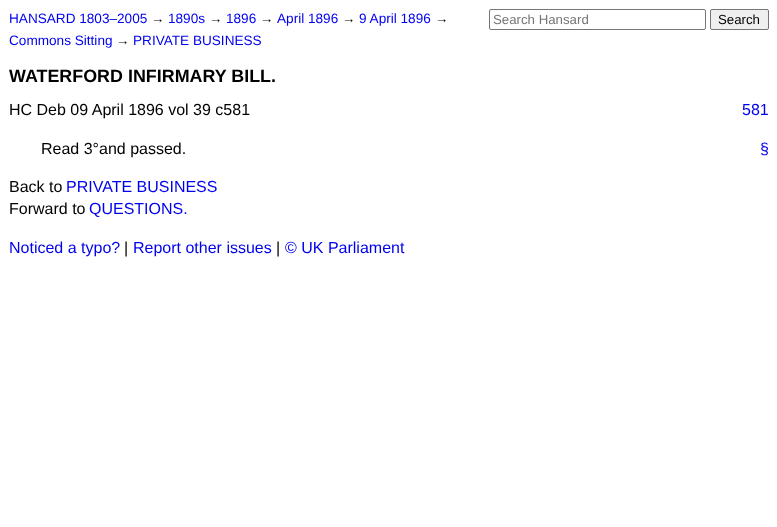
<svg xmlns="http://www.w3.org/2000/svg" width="777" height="527">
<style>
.a{font:13.6px Liberation Sans;fill:#00e}
.b{font:13.6px Liberation Sans;fill:#000}
.c{font:13.25px Liberation Sans;fill:#757575}
.d{font:13.25px Liberation Sans;fill:#000}
.e{font:bold 17.9px Liberation Sans;fill:#000}
.f{font:16px Liberation Sans;fill:#000}
.g{font:16px Liberation Sans;fill:#00e}
</style>
<rect width="100%" height="100%" fill="#fff"/>
<rect fill="none" stroke="#767676" x="489.5" y="9.5" width="216" height="20" rx="1.5"/>
<rect fill="#efefef" stroke="#767676" x="710.5" y="9.5" width="58" height="20" rx="1.5"/>
<text class="a" x="9" y="23">HANSARD 1803–2005</text>
<text class="b" x="151" y="23">→</text>
<text class="a" x="168" y="23">1890s</text>
<text class="b" x="209" y="23">→</text>
<text class="a" x="226" y="23">1896</text>
<text class="b" x="260" y="23">→</text>
<text class="a" x="277" y="23">April 1896</text>
<text class="b" x="342" y="23">→</text>
<text class="a" x="359" y="23">9 April 1896</text>
<text class="b" x="435" y="23">→</text>
<text class="a" x="9" y="45">Commons Sitting</text>
<text class="b" x="116" y="45">→</text>
<text class="a" x="133" y="45">PRIVATE BUSINESS</text>
<text class="c" x="493" y="24">Search Hansard</text>
<text class="d" x="718" y="24">Search</text>
<text class="e" x="9" y="82">WATERFORD INFIRMARY BILL.</text>
<text class="f" x="9" y="115">HC Deb 09 April 1896 vol 39 c581</text>
<text class="g" x="742" y="115">581</text>
<text class="f" x="41" y="154">Read 3°and passed.</text>
<text class="g" x="760" y="154">§</text>
<text class="f" x="9" y="192">Back to</text>
<text class="g" x="66" y="192">PRIVATE BUSINESS</text>
<text class="f" x="9" y="214">Forward to</text>
<text class="g" x="89" y="214">QUESTIONS.</text>
<text class="g" x="9" y="253">Noticed a typo?</text>
<text class="f" x="124" y="253">|</text>
<text class="g" x="133" y="253">Report other issues</text>
<text class="f" x="276" y="253">|</text>
<text class="g" x="285" y="253">© UK Parliament</text>
</svg>
